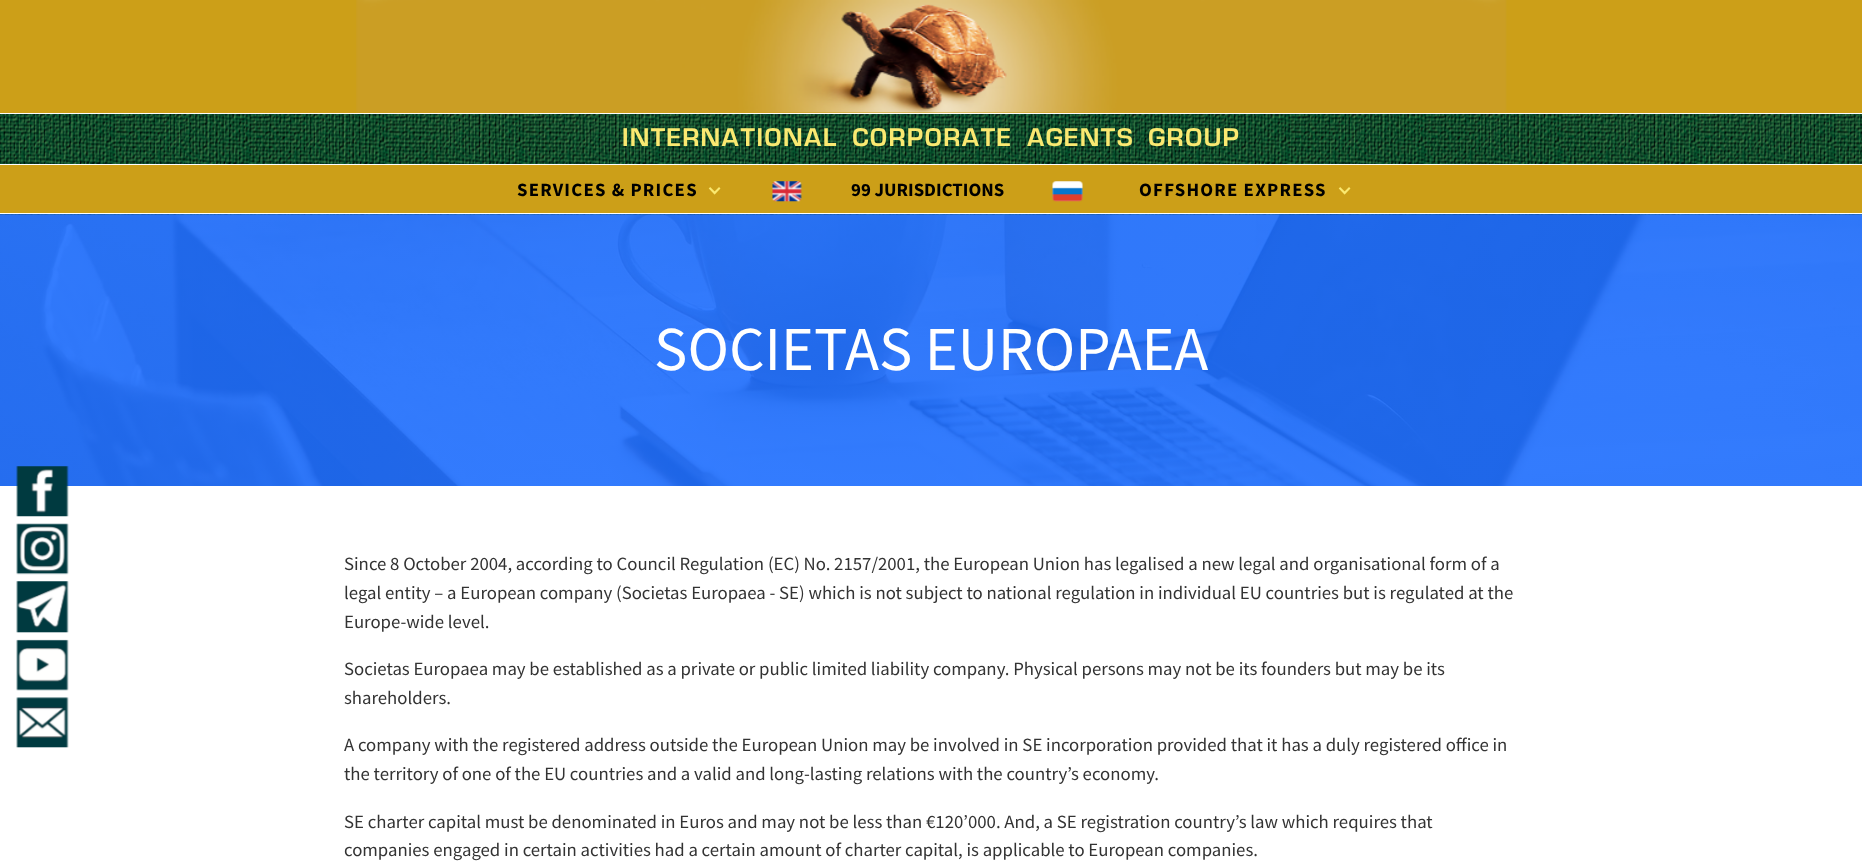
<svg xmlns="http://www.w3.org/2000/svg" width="1862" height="865">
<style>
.a{font:bold 25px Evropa;letter-spacing:1.1px;fill:#fae971}
.b{font:bold 18.75px Source Sans Pro;letter-spacing:1.25px;fill:#000}
.c{font:bold 18.75px Source Sans Pro;fill:#000}
.d{font:62.5px Source Sans Pro;fill:#fff}
.e{font:18.75px Source Sans Pro;fill:#333}
</style>
<rect width="100%" height="100%" fill="#fff"/>
<path fill="#cc9f18" d="M0 0h1862v113H0z"/>
<image href="1.png" x="356" y="0" width="1151" height="113"/>
<image href="6.png" x="0" y="214" width="1862" height="272"/>
<image href="2.png" x="0" y="114" width="1862" height="101"/>
<path fill="#cc9f18" d="M0 165h1862v48H0z"/>
<path fill="#fff" d="M0 164h1862v1H0z"/>
<path fill="#fff" d="M0 213h1862v1H0z"/>
<image href="3.png" x="708" y="187" width="13" height="8"/>
<image href="4.png" x="772" y="181" width="30" height="21"/>
<image href="5.png" x="1052" y="181" width="31" height="21"/>
<image href="3.png" x="1338" y="187" width="13" height="8"/>
<image href="7.png" x="16" y="466" width="53" height="51"/>
<image href="8.png" x="16" y="523" width="53" height="52"/>
<image href="9.png" x="16" y="581" width="53" height="52"/>
<image href="10.png" x="16" y="639" width="53" height="52"/>
<image href="11.png" x="16" y="697" width="53" height="51"/>
<text class="a" x="622" y="146">INTERNATIONAL CORPORATE AGENTS GROUP</text>
<text class="b" x="517" y="196">SERVICES &amp; PRICES</text>
<text class="c" x="851" y="196">99 JURISDICTIONS</text>
<text class="b" x="1139" y="196">OFFSHORE EXPRESS</text>
<text class="d" x="654" y="370">SOCIETAS EUROPAEA</text>
<text class="e" x="344" y="570">Since 8 October 2004, according to Council Regulation (EC) No. 2157/2001, the European Union has legalised a new legal and organisational form of a</text>
<text class="e" x="344" y="599">legal entity – a European company (Societas Europaea - SE) which is not subject to national regulation in individual EU countries but is regulated at the</text>
<text class="e" x="344" y="628">Europe-wide level.</text>
<text class="e" x="344" y="675">Societas Europaea may be established as a private or public limited liability company. Physical persons may not be its founders but may be its</text>
<text class="e" x="344" y="704">shareholders.</text>
<text class="e" x="344" y="751">A company with the registered address outside the European Union may be involved in SE incorporation provided that it has a duly registered office in</text>
<text class="e" x="344" y="780">the territory of one of the EU countries and a valid and long-lasting relations with the country’s economy.</text>
<text class="e" x="344" y="828">SE charter capital must be denominated in Euros and may not be less than €120’000. And, a SE registration country’s law which requires that</text>
<text class="e" x="344" y="856">companies engaged in certain activities had a certain amount of charter capital, is applicable to European companies.</text>
</svg>
